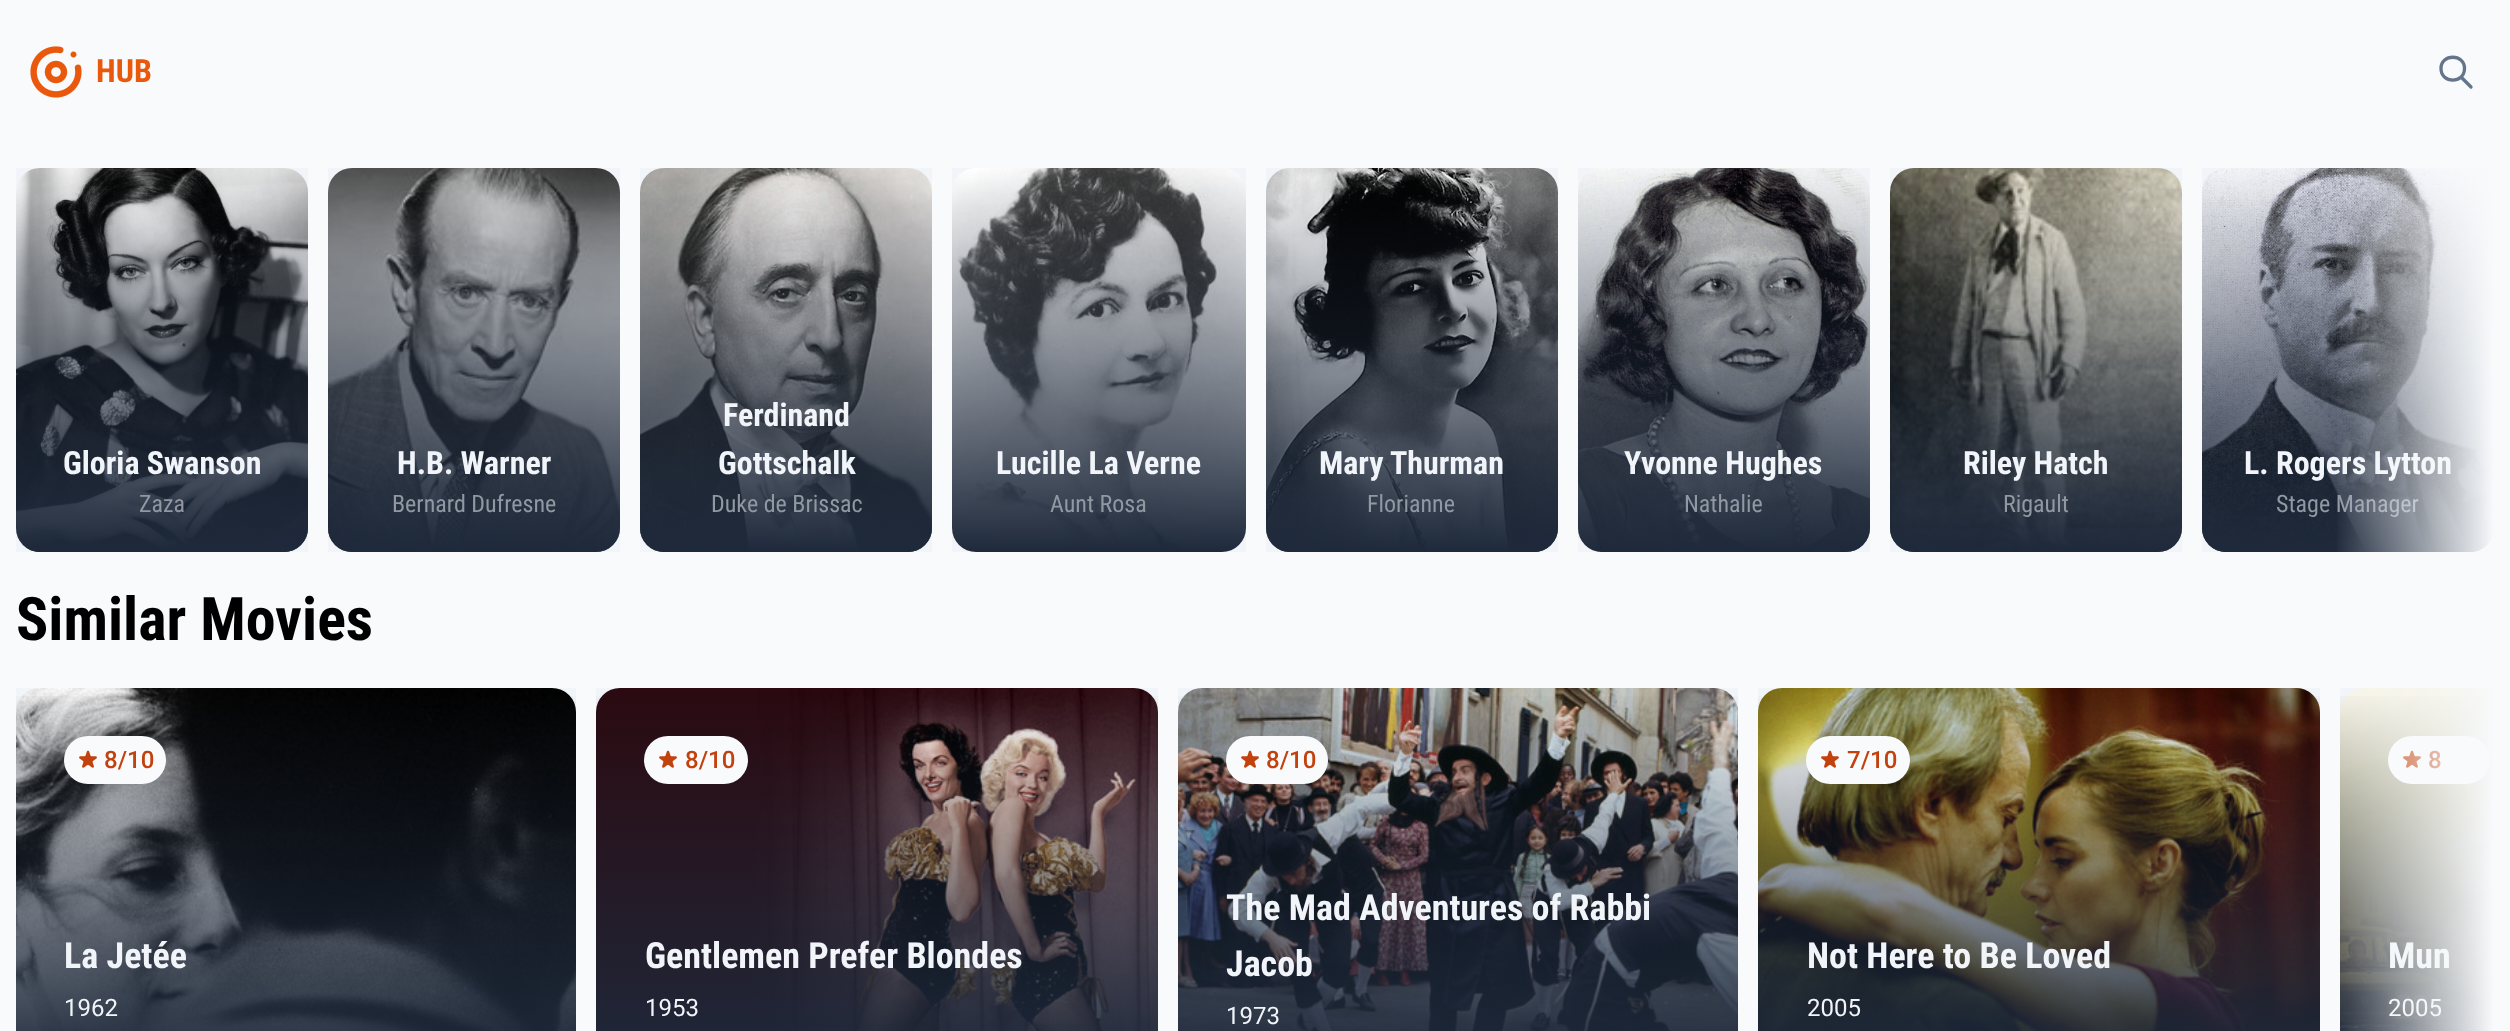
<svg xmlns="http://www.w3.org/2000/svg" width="2510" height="1031">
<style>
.a{font:bold 32px Roboto Condensed;fill:#ea580c}
.b{font:bold 32px Roboto Condensed;fill:#f1f5f9}
.c{font:24px Roboto Condensed;fill:#9198a2}
.d{font:bold 60px Roboto Condensed;fill:#000}
.e{font:500 24px Roboto;fill:#c2410c}
.f{font:bold 36px Roboto Condensed;fill:#f1f5f9}
.g{font:24px Roboto;fill:#f1f5f9}
</style>
<defs>
<linearGradient id="g1" gradientUnits="userSpaceOnUse" x1="162" y1="552" x2="162" y2="168"><stop offset="0" stop-color="#1e293b"/><stop offset="1" stop-color="#1e293b" stop-opacity="0"/></linearGradient>
<linearGradient id="g2" gradientUnits="userSpaceOnUse" x1="474" y1="552" x2="474" y2="168"><stop offset="0" stop-color="#1e293b"/><stop offset="1" stop-color="#1e293b" stop-opacity="0"/></linearGradient>
<linearGradient id="g3" gradientUnits="userSpaceOnUse" x1="786" y1="552" x2="786" y2="168"><stop offset="0" stop-color="#1e293b"/><stop offset="1" stop-color="#1e293b" stop-opacity="0"/></linearGradient>
<linearGradient id="g4" gradientUnits="userSpaceOnUse" x1="1099" y1="552" x2="1099" y2="168"><stop offset="0" stop-color="#1e293b"/><stop offset="1" stop-color="#1e293b" stop-opacity="0"/></linearGradient>
<linearGradient id="g5" gradientUnits="userSpaceOnUse" x1="1412" y1="552" x2="1412" y2="168"><stop offset="0" stop-color="#1e293b"/><stop offset="1" stop-color="#1e293b" stop-opacity="0"/></linearGradient>
<linearGradient id="g6" gradientUnits="userSpaceOnUse" x1="1724" y1="552" x2="1724" y2="168"><stop offset="0" stop-color="#1e293b"/><stop offset="1" stop-color="#1e293b" stop-opacity="0"/></linearGradient>
<linearGradient id="g7" gradientUnits="userSpaceOnUse" x1="2036" y1="552" x2="2036" y2="168"><stop offset="0" stop-color="#1e293b"/><stop offset="1" stop-color="#1e293b" stop-opacity="0"/></linearGradient>
<linearGradient id="g8" gradientUnits="userSpaceOnUse" x1="2348" y1="552" x2="2348" y2="168"><stop offset="0" stop-color="#1e293b"/><stop offset="1" stop-color="#1e293b" stop-opacity="0"/></linearGradient>
<linearGradient id="g9" gradientUnits="userSpaceOnUse" x1="296" y1="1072" x2="296" y2="688"><stop offset="0" stop-color="#1e293b"/><stop offset="1" stop-color="#1e293b" stop-opacity="0"/></linearGradient>
<linearGradient id="g10" gradientUnits="userSpaceOnUse" x1="877" y1="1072" x2="877" y2="688"><stop offset="0" stop-color="#1e293b"/><stop offset="1" stop-color="#1e293b" stop-opacity="0"/></linearGradient>
<linearGradient id="g11" gradientUnits="userSpaceOnUse" x1="1458" y1="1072" x2="1458" y2="688"><stop offset="0" stop-color="#1e293b"/><stop offset="1" stop-color="#1e293b" stop-opacity="0"/></linearGradient>
<linearGradient id="g12" gradientUnits="userSpaceOnUse" x1="2039" y1="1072" x2="2039" y2="688"><stop offset="0" stop-color="#1e293b"/><stop offset="1" stop-color="#1e293b" stop-opacity="0"/></linearGradient>
<linearGradient id="g13" gradientUnits="userSpaceOnUse" x1="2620" y1="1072" x2="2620" y2="688"><stop offset="0" stop-color="#1e293b"/><stop offset="1" stop-color="#1e293b" stop-opacity="0"/></linearGradient>
<linearGradient id="g14" gradientUnits="userSpaceOnUse" x1="2494" y1="360" x2="2334" y2="360"><stop offset="0" stop-color="#f8fafc"/><stop offset="1" stop-color="#f8fafc" stop-opacity="0"/></linearGradient>
<linearGradient id="g15" gradientUnits="userSpaceOnUse" x1="2494" y1="880" x2="2334" y2="880"><stop offset="0" stop-color="#f8fafc"/><stop offset="1" stop-color="#f8fafc" stop-opacity="0"/></linearGradient>
</defs>
<rect width="100%" height="100%" fill="#f8fafc"/>
<image href="1.png" x="30" y="46" width="52" height="52"/>
<path fill="none" stroke="#64748b" stroke-width="3.3" stroke-linecap="round" stroke-linejoin="round" d="M2471 87l-10-10m3.5-8.5c0 15.5-23.5 15.5-23.5 0c0-15 23.5-15 23.5 0z"/>
<path fill="#f1f5f9" d="M16 168h292v384H16z"/>
<image href="2.png" x="16" y="168" width="292" height="384"/>
<rect fill="url(#g1)" x="16" y="168" width="292" height="384" rx="24"/>
<path fill="#f1f5f9" d="M328 168h292v384H328z"/>
<image href="3.png" x="328" y="168" width="292" height="384"/>
<rect fill="url(#g2)" x="328" y="168" width="292" height="384" rx="24"/>
<path fill="#f1f5f9" d="M640 168h292v384H640z"/>
<image href="4.png" x="640" y="168" width="292" height="384"/>
<rect fill="url(#g3)" x="640" y="168" width="292" height="384" rx="24"/>
<path fill="#f1f5f9" d="M952 168h294v384H952z"/>
<image href="5.png" x="952" y="168" width="294" height="384"/>
<rect fill="url(#g4)" x="952" y="168" width="294" height="384" rx="24"/>
<path fill="#f1f5f9" d="M1266 168h292v384H1266z"/>
<image href="6.png" x="1266" y="168" width="292" height="384"/>
<rect fill="url(#g5)" x="1266" y="168" width="292" height="384" rx="24"/>
<path fill="#f1f5f9" d="M1578 168h292v384H1578z"/>
<image href="7.png" x="1578" y="168" width="292" height="384"/>
<rect fill="url(#g6)" x="1578" y="168" width="292" height="384" rx="24"/>
<path fill="#f1f5f9" d="M1890 168h292v384H1890z"/>
<image href="8.png" x="1890" y="168" width="292" height="384"/>
<rect fill="url(#g7)" x="1890" y="168" width="292" height="384" rx="24"/>
<path fill="#f1f5f9" d="M2202 168h291v384H2202z"/>
<image href="9.png" x="2202" y="168" width="291" height="384"/>
<rect fill="url(#g8)" x="2202" y="168" width="292" height="384" rx="24"/>
<path fill="#f1f5f9" d="M16 688h560v24H16z"/>
<image href="10.png" x="16" y="688" width="560" height="343"/>
<path fill="url(#g9)" d="M16 696h560v335H16z"/>
<rect fill="#f8fafc" x="64" y="736" width="102" height="48" rx="24"/>
<image href="11.png" x="79" y="750" width="18" height="18"/>
<path fill="#f1f5f9" d="M596 688h562v24H596z"/>
<image href="12.png" x="596" y="688" width="562" height="343"/>
<path fill="url(#g10)" d="M596 696h562v335H596z"/>
<rect fill="#f8fafc" x="644" y="736" width="104" height="48" rx="24"/>
<image href="11.png" x="659" y="750" width="18" height="18"/>
<path fill="#f1f5f9" d="M1178 688h560v24H1178z"/>
<image href="13.png" x="1178" y="688" width="560" height="343"/>
<path fill="url(#g11)" d="M1178 696h560v335H1178z"/>
<rect fill="#f8fafc" x="1226" y="736" width="102" height="48" rx="24"/>
<image href="11.png" x="1241" y="750" width="18" height="18"/>
<path fill="#f1f5f9" d="M1758 688h562v24H1758z"/>
<image href="14.png" x="1758" y="688" width="562" height="343"/>
<path fill="url(#g12)" d="M1758 696h562v335H1758z"/>
<rect fill="#f8fafc" x="1806" y="736" width="104" height="48" rx="24"/>
<image href="11.png" x="1821" y="750" width="18" height="18"/>
<path fill="#f1f5f9" d="M2340 688h24v24H2340z"/>
<image href="15.png" x="2340" y="688" width="153" height="343"/>
<path fill="url(#g13)" d="M2340 696h153v335H2340z"/>
<rect fill="#f8fafc" x="2388" y="736" width="102" height="48" rx="24"/>
<image href="11.png" x="2403" y="750" width="18" height="18"/>
<text class="a" x="96" y="82">HUB</text>
<text class="b" x="63" y="474">Gloria Swanson</text>
<text class="c" x="139" y="512">Zaza</text>
<text class="b" x="397" y="474">H.B. Warner</text>
<text class="c" x="392" y="512">Bernard Dufresne</text>
<text class="b" x="723" y="426">Ferdinand</text>
<text class="b" x="718" y="474">Gottschalk</text>
<text class="c" x="711" y="512">Duke de Brissac</text>
<text class="b" x="996" y="474">Lucille La Verne</text>
<text class="c" x="1050" y="512">Aunt Rosa</text>
<text class="b" x="1319" y="474">Mary Thurman</text>
<text class="c" x="1367" y="512">Florianne</text>
<text class="b" x="1624" y="474">Yvonne Hughes</text>
<text class="c" x="1684" y="512">Nathalie</text>
<text class="b" x="1963" y="474">Riley Hatch</text>
<text class="c" x="2003" y="512">Rigault</text>
<text class="b" x="2244" y="474">L. Rogers Lytton</text>
<text class="c" x="2276" y="512">Stage Manager</text>
<path fill="url(#g14)" d="M2337 168h157v384H2337z"/>
<text class="d" x="16" y="640">Similar Movies</text>
<text class="e" x="104" y="768">8/10</text>
<text class="f" x="64" y="968">La Jetée</text>
<text class="g" x="64" y="1016">1962</text>
<text class="e" x="685" y="768">8/10</text>
<text class="f" x="645" y="968">Gentlemen Prefer Blondes</text>
<text class="g" x="645" y="1016">1953</text>
<text class="e" x="1266" y="768">8/10</text>
<text class="f" x="1226" y="920">The Mad Adventures of Rabbi</text>
<text class="f" x="1226" y="976">Jacob</text>
<text class="g" x="1226" y="1024">1973</text>
<text class="e" x="1847" y="768">7/10</text>
<text class="f" x="1807" y="968">Not Here to Be Loved</text>
<text class="g" x="1807" y="1016">2005</text>
<text class="e" x="2428" y="768">8</text>
<text class="f" x="2388" y="968">Mun</text>
<text class="g" x="2388" y="1016">2005</text>
<path fill="url(#g15)" d="M2340 688h153v343H2340z"/>
</svg>
